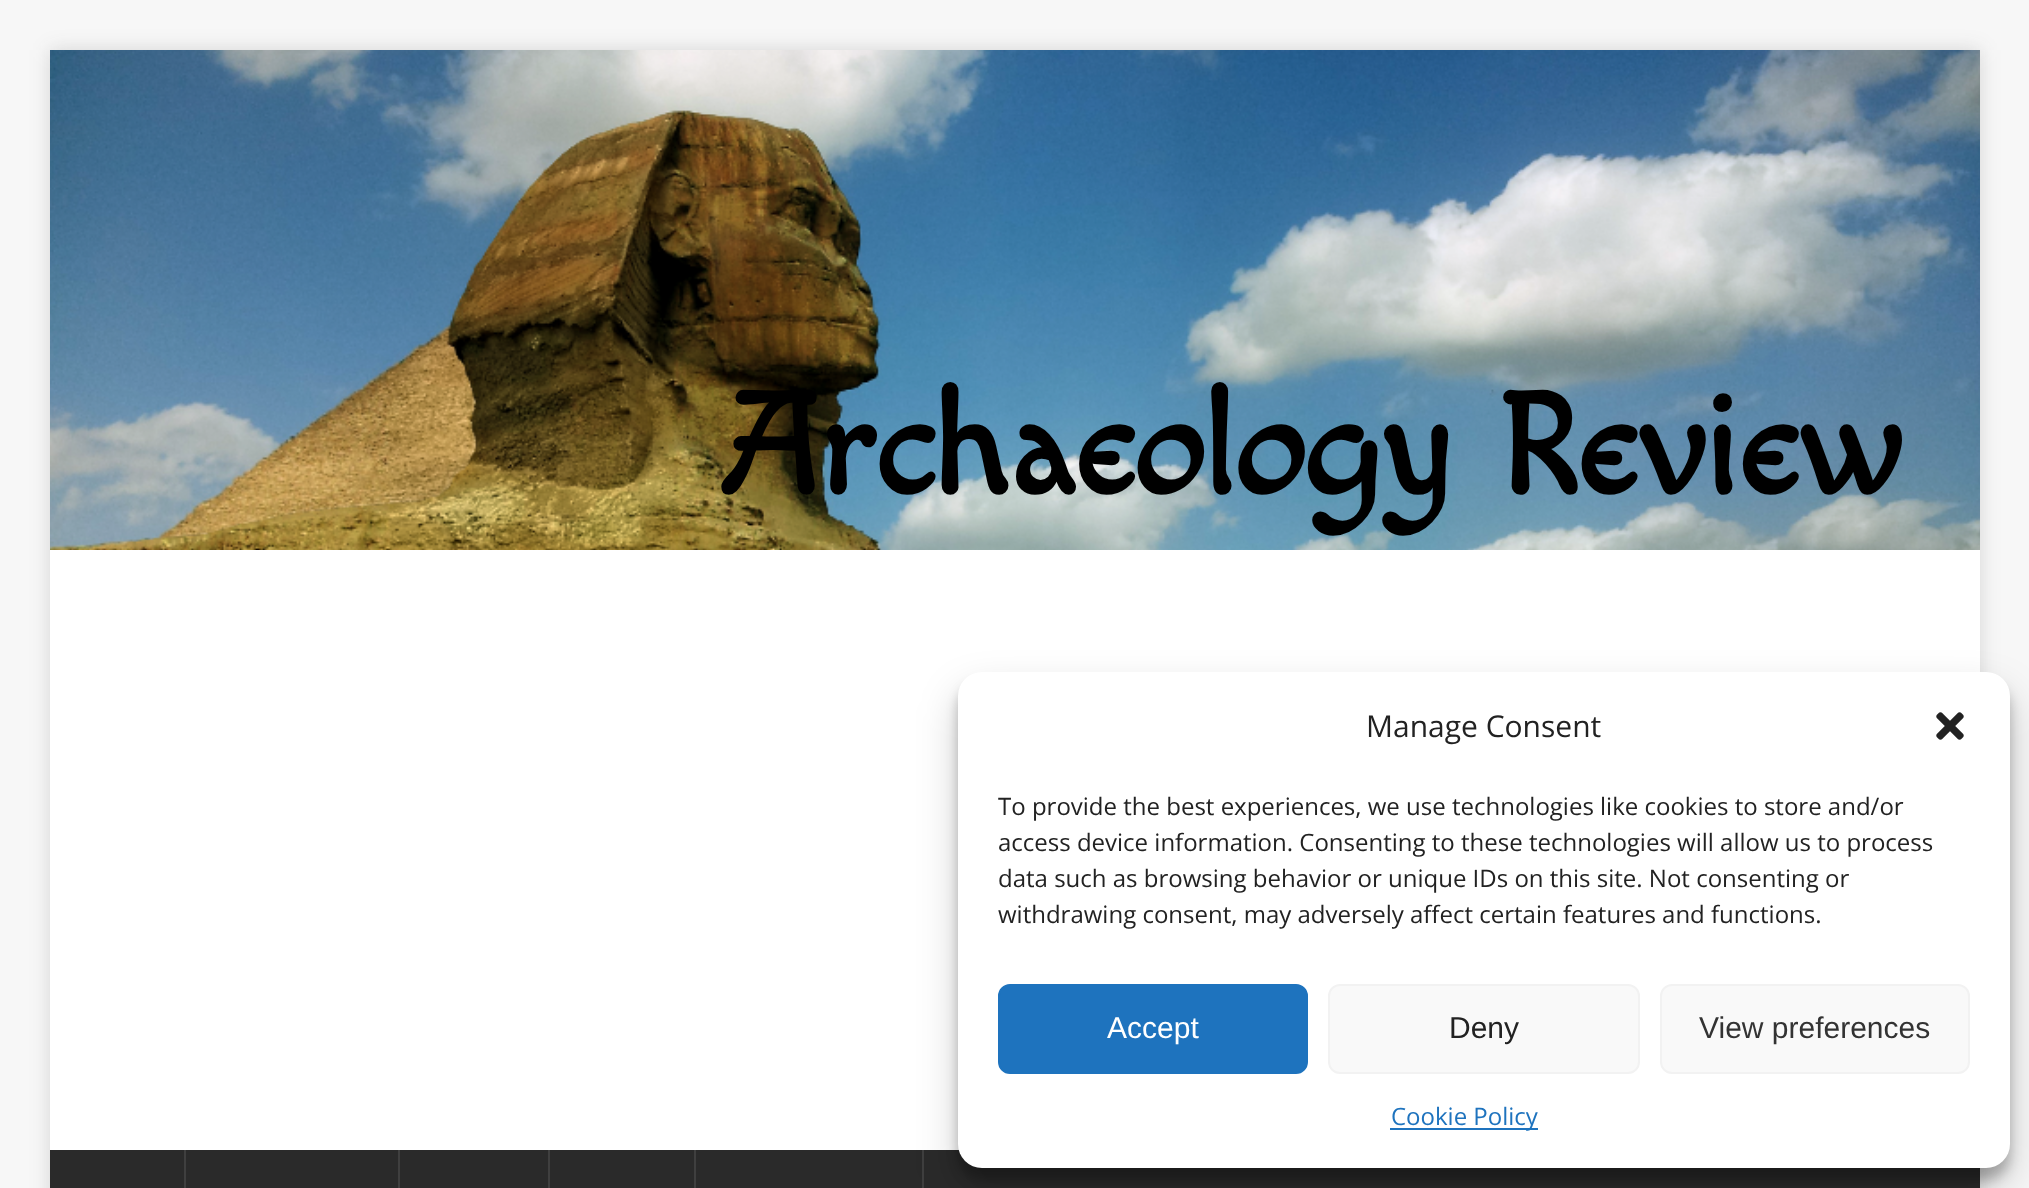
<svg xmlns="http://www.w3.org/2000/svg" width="2029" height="1188">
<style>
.a{font:bold 144px Macondo;fill:#000}
.b{font:30px Open Sans;fill:#222}
.c{font:24px Open Sans;fill:#222}
.d{font:30px Liberation Sans;fill:#fff}
.e{font:30px Liberation Sans;fill:#222}
.f{font:30px Liberation Sans;fill:#333}
.g{font:24px Open Sans;fill:#1e73be}
</style>
<rect width="100%" height="100%" fill="#f7f7f7"/>
<path fill="#3232322b" filter="blur(10px)" d="M50 50h1930v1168H50z"/>
<path fill="#fff" d="M50 550h1930v600H50z"/>
<image href="1.png" x="50" y="50" width="1930" height="500"/>
<path fill="#2a2a2a" d="M50 1150h1930v38H50z"/>
<path fill="#3f3f3f" d="M184 1150h2v38H184z"/>
<path fill="#3f3f3f" d="M398 1150h2v38H398z"/>
<path fill="#3f3f3f" d="M548 1150h2v38H548z"/>
<path fill="#3f3f3f" d="M694 1150h2v38H694z"/>
<path fill="#3f3f3f" d="M922 1150h2v38H922z"/>
<rect fill="#0000003b" filter="blur(6px)" x="958" y="684" width="1052" height="496" rx="24"/>
<rect fill="#00000030" filter="blur(20px)" x="958" y="692" width="1052" height="496" rx="24"/>
<rect fill="#fff" x="958" y="672" width="1052" height="496" rx="24"/>
<image href="2.png" x="1936" y="712" width="28" height="28"/>
<rect fill="#1e73be" stroke="#1e73be" stroke-width="2" x="999" y="985" width="308" height="88" rx="11"/>
<rect fill="#f9f9f9" stroke="#f2f2f2" stroke-width="2" x="1329" y="985" width="310" height="88" rx="11"/>
<rect fill="#f9f9f9" stroke="#f2f2f2" stroke-width="2" x="1661" y="985" width="308" height="88" rx="11"/>
<path fill="#1e73be" d="M1390 1128h148v2H1390z"/>
<text class="a" x="722" y="494">Archaeology Review</text>
<text class="b" x="1366" y="737">Manage Consent</text>
<text class="c" x="998" y="815">To provide the best experiences, we use technologies like cookies to store and/or</text>
<text class="c" x="998" y="851">access device information. Consenting to these technologies will allow us to process</text>
<text class="c" x="998" y="887">data such as browsing behavior or unique IDs on this site. Not consenting or</text>
<text class="c" x="998" y="923">withdrawing consent, may adversely affect certain features and functions.</text>
<text class="d" x="1107" y="1038">Accept</text>
<text class="e" x="1449" y="1038">Deny</text>
<text class="f" x="1699" y="1038">View preferences</text>
<text class="g" x="1391" y="1125">Cookie Policy</text>
</svg>
